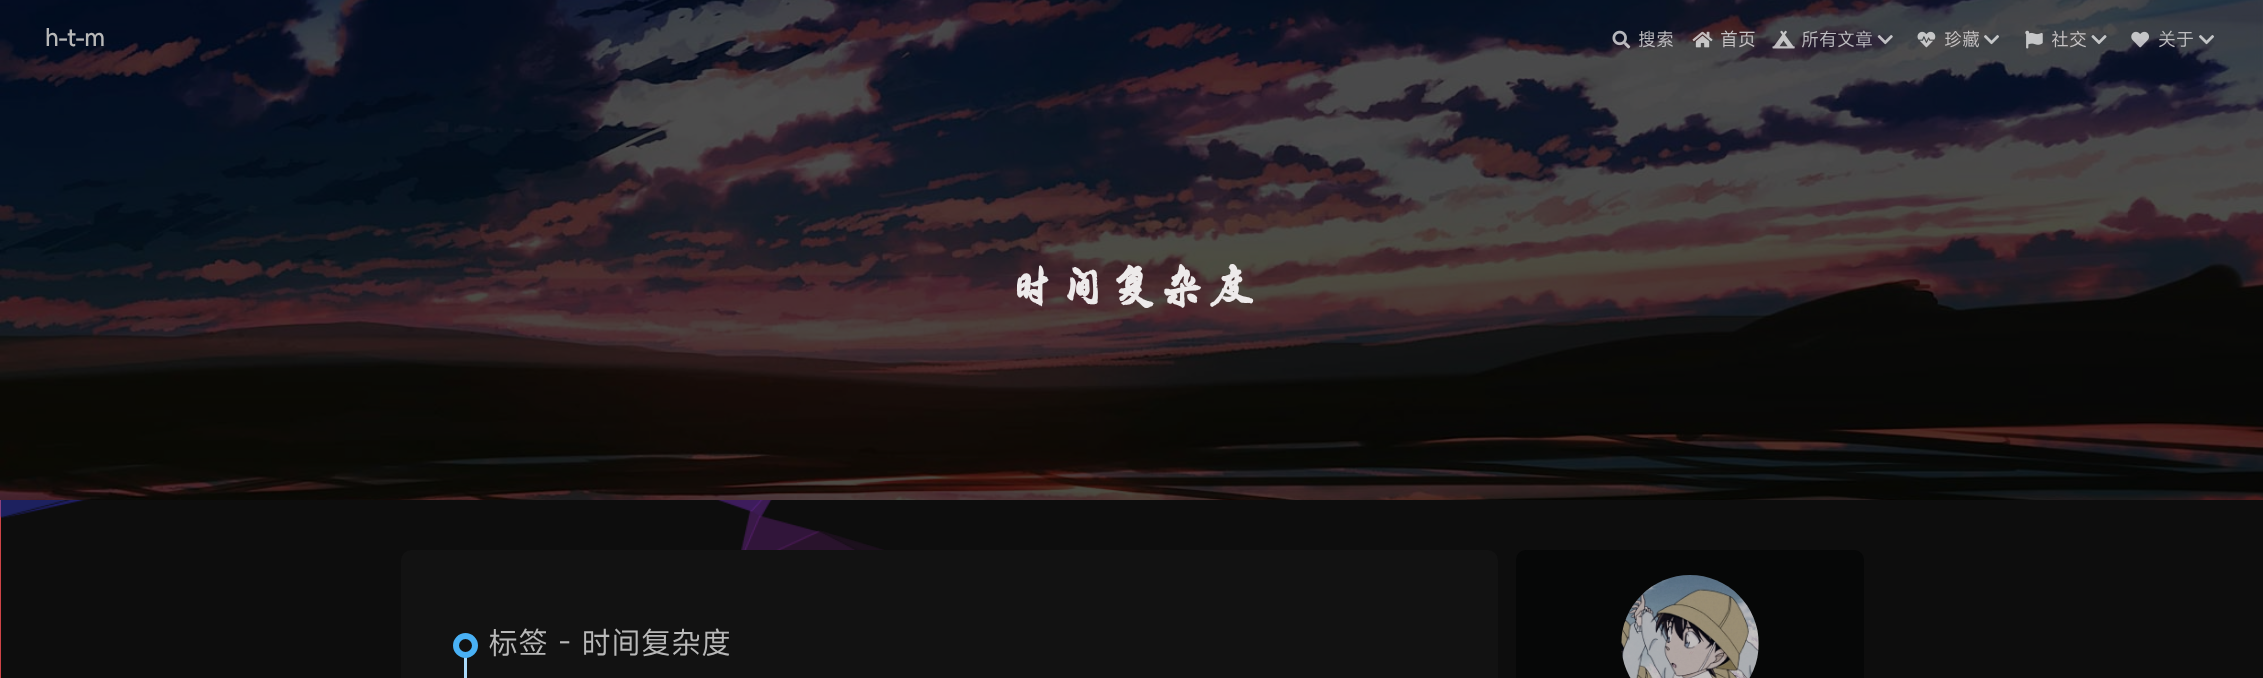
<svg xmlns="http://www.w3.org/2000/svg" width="2263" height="678">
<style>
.a{font:bold 23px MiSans;fill:#b8b8b8}
.b{font:18px MiSans;fill:#bebec1}
.c{font:18px MiSans;fill:#c6c3c4}
.d{font:bold 50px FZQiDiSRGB;fill:#edeaea}
.e{font:30px MiSans;fill:#b8b8b8}
</style>
<rect width="100%" height="100%" fill="#0d0d0d"/>
<path fill="#cc4346" d="M0 500h1v178H0z"/>
<image href="1.png" x="0" y="0" width="2263" height="500"/>
<image href="2.png" x="1612" y="30" width="19" height="19"/>
<image href="3.png" x="1692" y="31" width="21" height="17"/>
<image href="4.png" x="1772" y="30" width="23" height="19"/>
<image href="5.png" x="1877" y="35" width="16" height="10"/>
<image href="6.png" x="1917" y="31" width="19" height="17"/>
<image href="7.png" x="1984" y="35" width="15" height="10"/>
<image href="8.png" x="2025" y="30" width="18" height="19"/>
<image href="9.png" x="2091" y="35" width="16" height="10"/>
<image href="10.png" x="2131" y="31" width="18" height="17"/>
<image href="11.png" x="2199" y="35" width="15" height="10"/>
<rect fill="#121212" x="401" y="550" width="1097" height="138" rx="10"/>
<path fill="#aadafa" d="M464 653h3v25H464z"/>
<circle fill="#121212" stroke="#49b1f5" stroke-width="6" cx="465.5" cy="645.5" r="9.5"/>
<rect fill="#060707" x="1516" y="550" width="348" height="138" rx="10"/>
<image href="12.png" x="1621" y="575" width="138" height="103"/>
<image href="13.png" x="0" y="500" width="884" height="50"/>
<text class="a" x="45" y="46">h-t-m</text>
<text class="b" x="1638" y="46">搜索</text>
<text class="c" x="1720" y="46">首页</text>
<text class="b" x="1801" y="46">所有文章</text>
<text class="c" x="1944" y="46">珍藏</text>
<text class="c" x="2051" y="46">社交</text>
<text class="b" x="2158" y="46">关于</text>
<text class="d" x="1007" y="304">时间复杂度</text>
<text class="e" x="488" y="654">标签 - 时间复杂度</text>
</svg>
